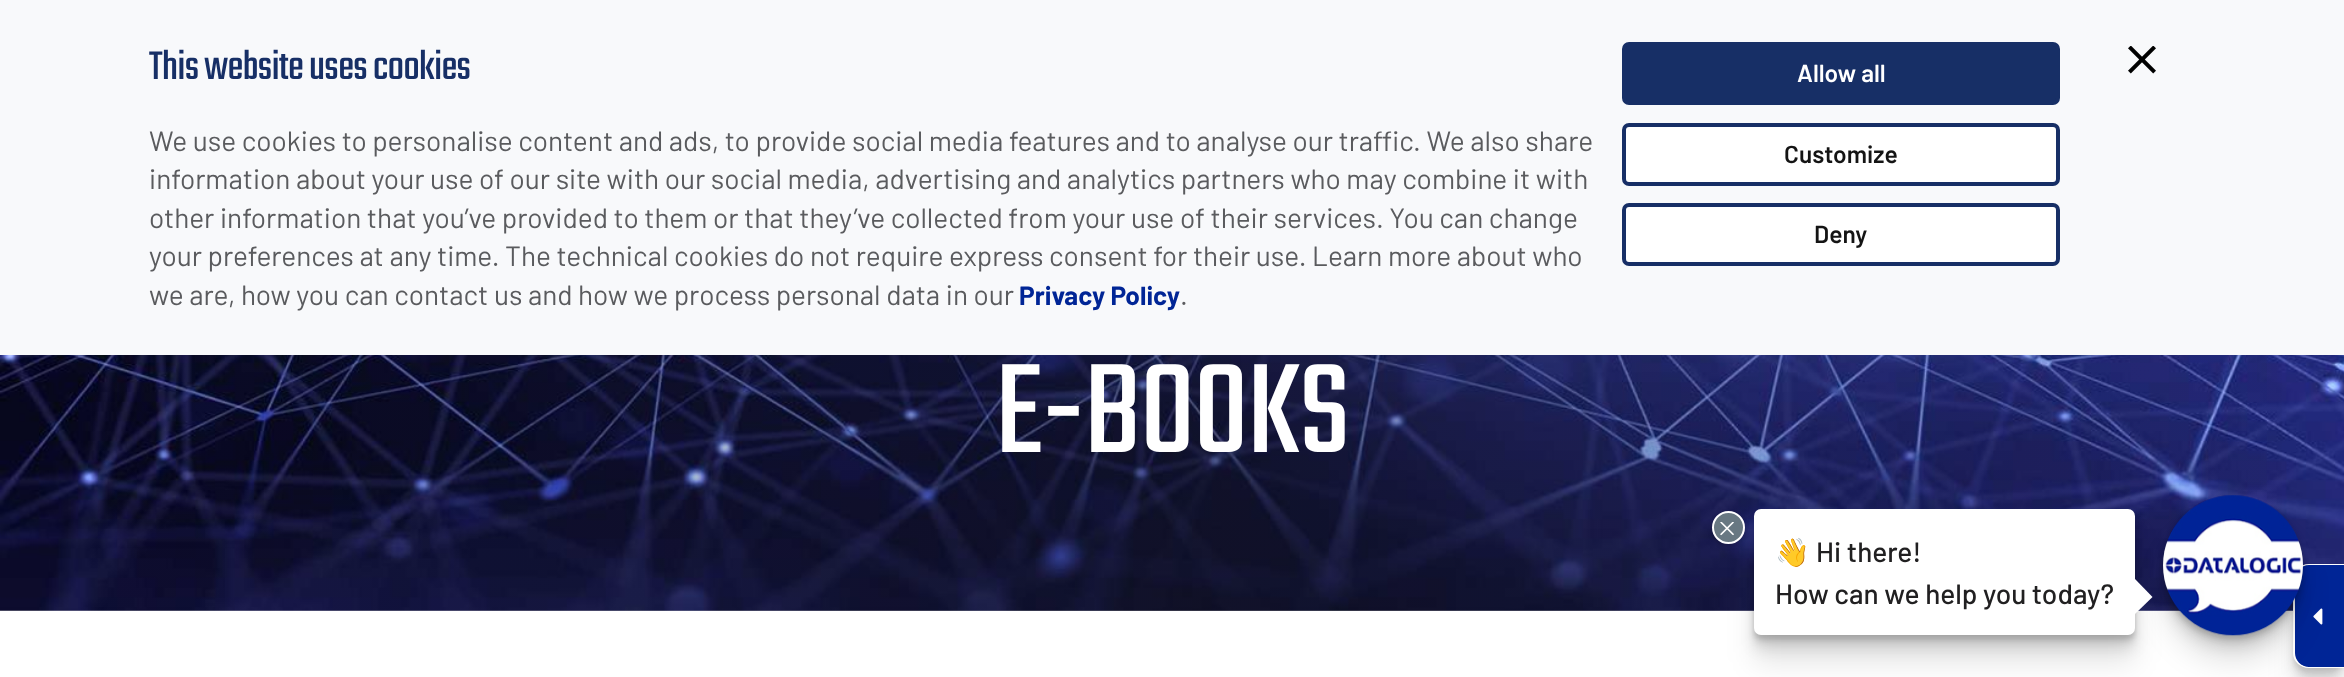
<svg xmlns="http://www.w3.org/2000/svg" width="2344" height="677">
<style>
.a{font:300 43.75px Teko;letter-spacing:-0.55px;fill:#172f66}
.b{font:28px Barlow;fill:#5a5b5e}
.c{font:bold 26.25px Barlow;fill:#002596}
.d{font:600 24.5px Barlow;fill:#fff}
.e{font:600 24.5px Barlow;fill:#141414}
.f{font:300 140px Teko;letter-spacing:-1.5px;fill:#fff}
.g{font:28px Noto Color Emoji;fill:#212021}
.h{font:500 28px Barlow;fill:#212021}
</style>
<defs>
<linearGradient id="g1" gradientUnits="userSpaceOnUse" x1="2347" y1="433" x2="-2.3" y2="403"><stop offset="0" stop-color="#151820" stop-opacity="0"/><stop offset="0.39" stop-color="#151820" stop-opacity="0.3"/><stop offset="0.49" stop-color="#151820" stop-opacity="0.4"/><stop offset="0.59" stop-color="#151820" stop-opacity="0.28"/><stop offset="0.99" stop-color="#151820" stop-opacity="0"/></linearGradient>
</defs>
<rect width="100%" height="100%" fill="#fff"/>
<path fill="#f8f9fb" d="M0 0h2344v355H0z"/>
<rect fill="#172f66" stroke="#172f66" stroke-width="4" x="1624" y="44" width="434" height="59" rx="5"/>
<rect fill="#fff" stroke="#172f66" stroke-width="4" x="1624" y="125" width="434" height="59" rx="5"/>
<rect fill="#fff" stroke="#172f66" stroke-width="4" x="1624" y="205" width="434" height="59" rx="5"/>
<image href="1.png" x="2128" y="46" width="28" height="28"/>
<image href="2.png" x="0" y="355" width="2344" height="256"/>
<path fill="url(#g1)" d="M91 355h2191v256H91z"/>
<rect fill="#00000012" filter="blur(14px)" x="2293" y="592" width="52" height="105" rx="16"/>
<rect fill="#00000012" filter="blur(7px)" x="2293" y="578" width="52" height="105" rx="16"/>
<rect fill="#00000012" filter="blur(3.5px)" x="2293" y="571" width="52" height="105" rx="16"/>
<rect fill="#00000012" filter="blur(2px)" x="2293" y="567" width="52" height="105" rx="16"/>
<path fill="#002596" d="M2308 565h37v102h-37c-7.5 0-14-6.5-14-14v-74c0-7.5 6.5-14 14-14z"/>
<path fill="#fff" fill-rule="evenodd" d="M2309 564h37v104h-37c-9 0-16-7-16-15v-74c0-8 7-15 16-15zm0 1h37v102h-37c-8 0-14-7-14-14v-74c0-7 6-14 14-14z"/>
<image href="3.png" x="2313" y="608" width="10" height="17"/>
<rect fill="#0000001a" filter="blur(14px)" x="2163" y="523" width="140" height="140" rx="70"/>
<rect fill="#0000001a" filter="blur(7px)" x="2163" y="509" width="140" height="140" rx="70"/>
<rect fill="#0000001a" filter="blur(3.5px)" x="2163" y="502" width="140" height="140" rx="70"/>
<rect fill="#0000001a" filter="blur(2px)" x="2163" y="499" width="140" height="140" rx="70"/>
<image href="5.png" x="2163" y="495" width="140" height="141"/>
<rect fill="#0000001a" filter="blur(14px)" x="1754" y="537" width="381" height="126" rx="7"/>
<rect fill="#0000001a" filter="blur(7px)" x="1754" y="523" width="381" height="126" rx="7"/>
<rect fill="#0000001a" filter="blur(3.5px)" x="1754" y="516" width="381" height="126" rx="7"/>
<rect fill="#0000001a" filter="blur(2px)" x="1754" y="513" width="381" height="126" rx="7"/>
<rect fill="#fff" x="1754" y="509" width="381" height="126" rx="7"/>
<rect fill="#00000033" filter="blur(2px)" x="1712" y="513" width="33" height="33" rx="16.5"/>
<circle fill="#687882" stroke="#fff" stroke-width="2" cx="1728.5" cy="527.5" r="15.5"/>
<image href="4.png" x="1720" y="522" width="14" height="14"/>
<path fill="#fff" d="M2135 614v-35l17.5 18z"/>
<text class="a" x="149" y="79">This website uses cookies</text>
<text class="b" x="149" y="151">We use cookies to personalise content and ads, to provide social media features and to analyse our traffic. We also share</text>
<text class="b" x="149" y="189">information about your use of our site with our social media, advertising and analytics partners who may combine it with</text>
<text class="b" x="149" y="228">other information that you’ve provided to them or that they’ve collected from your use of their services. You can change</text>
<text class="b" x="149" y="266">your preferences at any time. The technical cookies do not require express consent for their use. Learn more about who</text>
<text class="b" x="149" y="305">we are, how you can contact us and how we process personal data in our</text>
<text class="c" x="1019" y="305">Privacy Policy</text>
<text class="b" x="1180" y="305">.</text>
<text class="d" x="1797" y="82">Allow all</text>
<text class="e" x="1784" y="163">Customize</text>
<text class="e" x="1814" y="243">Deny</text>
<text class="f" x="995" y="452">E-BOOKS</text>
<text class="g" x="1775" y="562">👋</text>
<text class="h" x="1816" y="562">Hi there!</text>
<text class="h" x="1775" y="604">How can we help you today?</text>
</svg>
